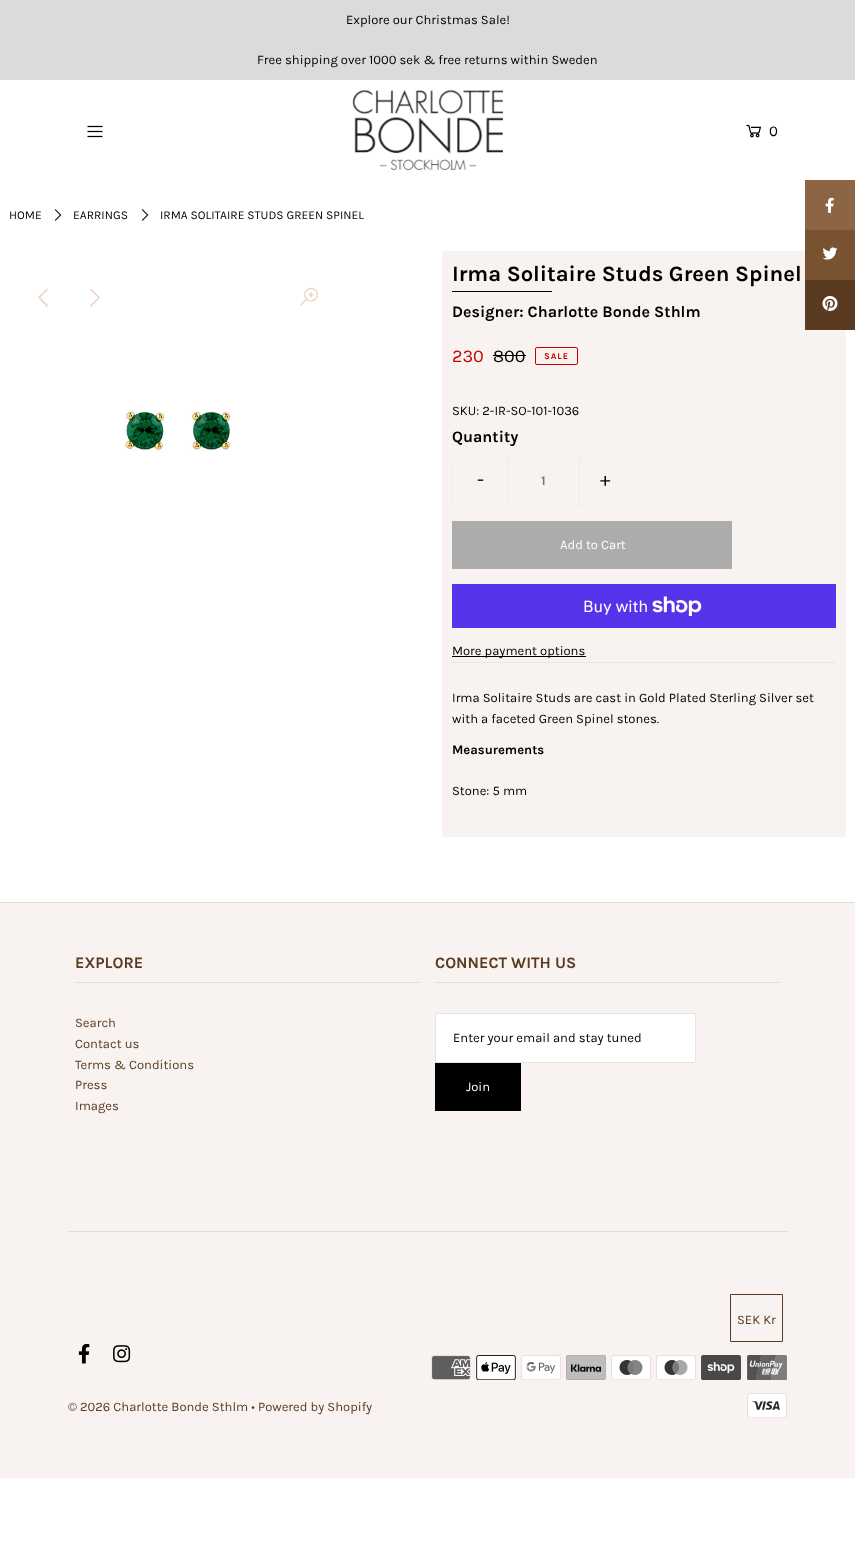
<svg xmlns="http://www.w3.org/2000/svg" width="855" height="1541">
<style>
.a{font:13px Karla;fill:#000}
.b{font:15px Karla;fill:#000}
.c{font:12px Karla;fill:#000}
.d{font:bold 22px Karla;fill:#000}
.e{font:bold 16px Karla;fill:#000}
.f{font:18px Karla;fill:#c50000}
.g{font:18px Karla;fill:#000}
.h{font:bold 9px Karla;letter-spacing:1px;fill:#c50000}
.i{font:20px Karla;fill:#000}
.j{font:bold 13px Karla;fill:#777}
.k{font:13px Karla;fill:#fff}
.l{font:16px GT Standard;fill:#fff}
.m{font:bold 13px Karla;fill:#000}
.n{font:bold 16px Karla;fill:#5a3b21}
.o{font:13px Karla;fill:#5a3b21}
</style>
<defs>
<clipPath id="clip1"><path d="M436 1030h259v15H436z"/></clipPath>
</defs>
<rect width="100%" height="100%" fill="#fff"/>
<path fill="#dbdbdb" d="M0 0h855v80H0z"/>
<image href="1.png" x="87" y="125" width="16" height="13"/>
<image href="2.png" x="352" y="89" width="151" height="81"/>
<image href="3.png" x="746" y="124" width="16" height="14"/>
<image href="4.png" x="54" y="209" width="8" height="12"/>
<image href="4.png" x="141" y="209" width="8" height="12"/>
<path fill="#ead3c1" d="M47 288.5l1 1l-8 8l8 8l-1 1.5l-9-9.5zm44 0l9 9l-9 9.5l-1-1.5l8-8l-8-8z"/>
<image href="5.png" x="300" y="287" width="18" height="19"/>
<image href="6.png" x="125" y="407" width="107" height="44"/>
<path fill="#f8f3f0" d="M442 251h404v586H442z"/>
<path fill="#000" d="M452 291h100v1H452z"/>
<path fill="#e5e5e5" d="M452 662h384v1H452z"/>
<path fill="#000" d="M493 355h33v1H493z"/>
<rect fill="none" stroke="#c50000" x="535.5" y="347.5" width="42" height="17" rx="1.5"/>
<path fill="none" stroke="#f0f0f0" d="M452.5 456.5h55v49H452.5z"/>
<rect fill="none" stroke="#f0f0f0" x="508.5" y="456.5" width="71" height="49" rx="1.5"/>
<path fill="none" stroke="#f0f0f0" d="M578.5 456.5h55v49H578.5z"/>
<path fill="#acacac" d="M452 521h280v48H452z"/>
<path fill="#5433eb" d="M452 584h384v44H452z"/>
<image href="7.png" x="652" y="596" width="50" height="20"/>
<path fill="#000" d="M452 656h134v1H452z"/>
<path fill="#8d6544" d="M805 180h50v50H805z"/>
<image href="8.png" x="825" y="197" width="9" height="16"/>
<path fill="#795232" d="M805 230h50v50H805z"/>
<image href="9.png" x="822" y="247" width="16" height="13"/>
<path fill="#5a3b21" d="M805 280h50v50H805z"/>
<image href="10.png" x="822" y="296" width="16" height="15"/>
<path fill="#f8f3f0" d="M0 903h855v575H0z"/>
<path fill="#ddd" d="M0 902h855v1H0z"/>
<path fill="#ddd" d="M75 982h345v1H75z"/>
<path fill="#ddd" d="M435 982h345v1H435z"/>
<path fill="#fff" stroke="#e5e5e5" d="M435.5 1013.5h260v49H435.5z"/>
<path fill="#000" d="M435 1063h86v48H435z"/>
<path fill="#ddd" d="M68 1231h720v1H68z"/>
<path fill="none" stroke="#5a3b21" d="M730.5 1294.5h52v47H730.5z"/>
<image href="11.png" x="431" y="1355" width="40" height="25"/>
<image href="12.png" x="476" y="1355" width="40" height="25"/>
<image href="13.png" x="521" y="1355" width="40" height="25"/>
<image href="14.png" x="566" y="1355" width="40" height="25"/>
<image href="15.png" x="611" y="1355" width="40" height="25"/>
<image href="16.png" x="656" y="1355" width="40" height="25"/>
<image href="17.png" x="701" y="1355" width="40" height="25"/>
<image href="18.png" x="747" y="1355" width="40" height="25"/>
<image href="19.png" x="747" y="1393" width="40" height="25"/>
<image href="20.png" x="78" y="1343" width="12" height="21"/>
<image href="21.png" x="113" y="1345" width="18" height="18"/>
<text class="a" x="346" y="24">Explore our Christmas Sale!</text>
<text class="a" x="257" y="64">Free shipping over 1000 sek &amp; free returns within Sweden</text>
<text class="b" x="769" y="136">0</text>
<text class="c" x="9" y="219">HOME</text>
<text class="c" x="73" y="219">EARRINGS</text>
<text class="c" x="160" y="219">IRMA SOLITAIRE STUDS GREEN SPINEL</text>
<text class="d" x="452" y="281">Irma Solitaire Studs Green Spinel</text>
<text class="e" x="452" y="317">Designer: Charlotte Bonde Sthlm</text>
<text class="f" x="452" y="362">230</text>
<text class="g" x="493" y="362">800</text>
<text class="h" x="544" y="359">SALE</text>
<text class="a" x="452" y="415">SKU: 2-IR-SO-101-1036</text>
<text class="e" x="452" y="442">Quantity</text>
<text class="i" x="477" y="486">-</text>
<text class="j" x="541" y="485">1</text>
<text class="i" x="600" y="486">+</text>
<text class="k" x="560" y="549">Add to Cart</text>
<text class="l" x="583" y="612">Buy with</text>
<text class="a" x="452" y="655">More payment options</text>
<text class="a" x="452" y="702">Irma Solitaire Studs are cast in Gold Plated Sterling Silver set</text>
<text class="a" x="452" y="723">with a faceted Green Spinel stones.</text>
<text class="m" x="452" y="754">Measurements</text>
<text class="a" x="452" y="795">Stone: 5 mm</text>
<text class="n" x="75" y="968">EXPLORE</text>
<text class="o" x="75" y="1027">Search</text>
<text class="o" x="75" y="1048">Contact us</text>
<text class="o" x="75" y="1069">Terms &amp; Conditions</text>
<text class="o" x="75" y="1089">Press</text>
<text class="o" x="75" y="1110">Images</text>
<text class="n" x="435" y="968">CONNECT WITH US</text>
<g clip-path="url(#clip1)">
<text class="a" x="453" y="1042">Enter your email and stay tuned</text>
</g>
<text class="k" x="466" y="1091">Join</text>
<text class="o" x="737" y="1324">SEK Kr</text>
<text class="o" x="68" y="1411">© 2026 Charlotte Bonde Sthlm • Powered by Shopify</text>
</svg>
